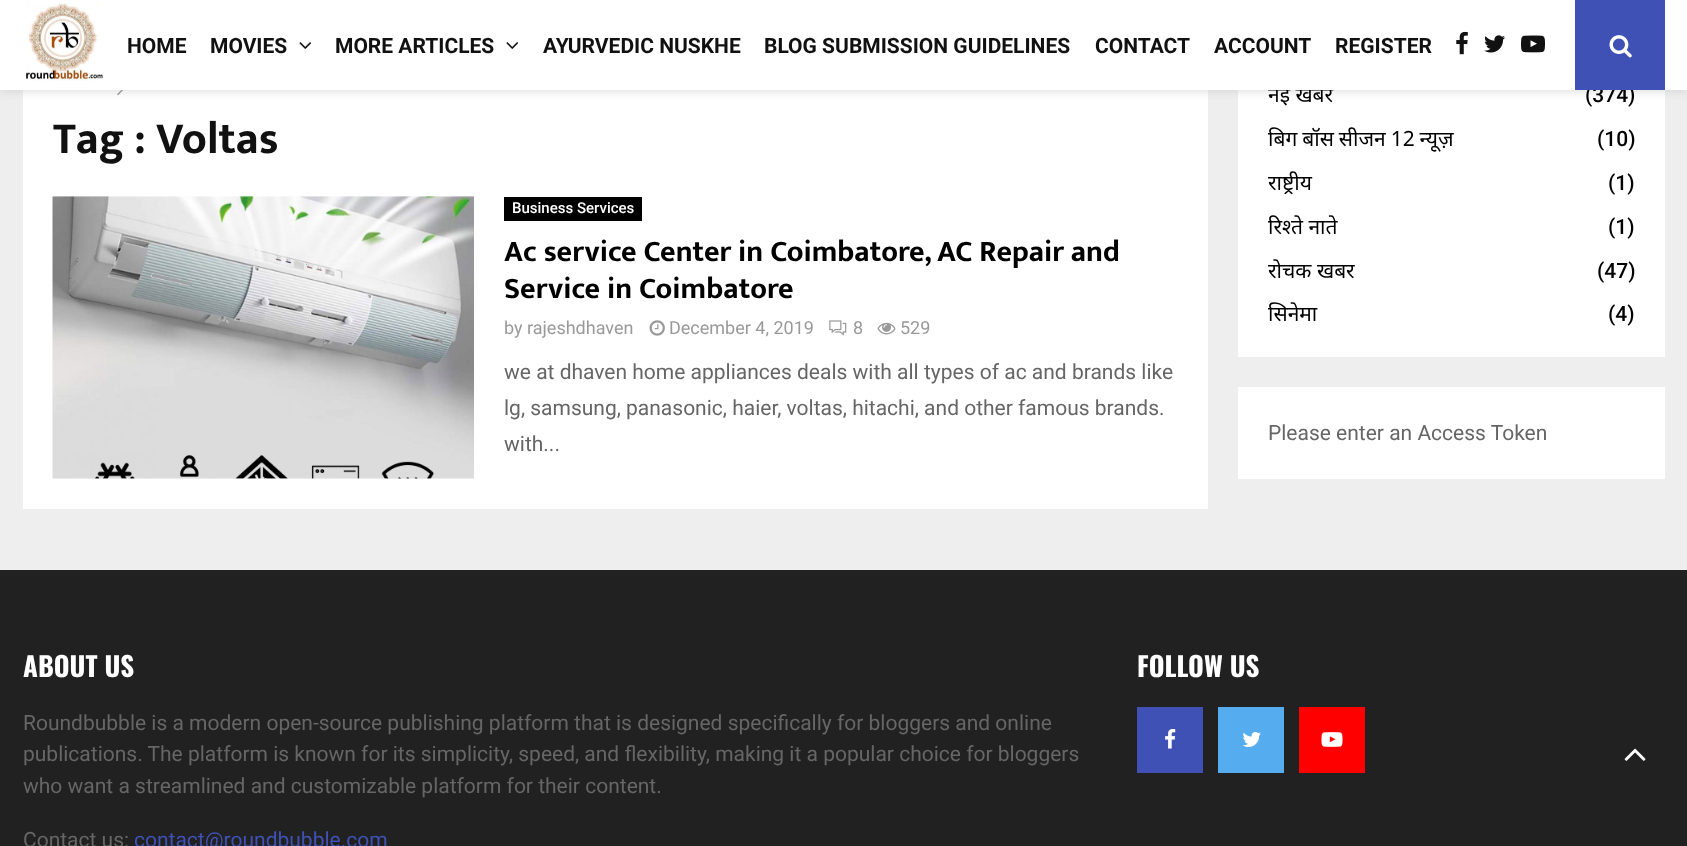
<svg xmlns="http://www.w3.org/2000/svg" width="1687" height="846">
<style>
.a{font:bold 45px Mukta Vaani;fill:#111}
.b{font:500 15px Roboto;fill:#fff}
.c{font:bold 30px Mukta Vaani;fill:#000}
.d{font:18px Roboto;fill:#999}
.e{font:21px Roboto;fill:#666}
.f{font:21px Noto Sans;fill:#000}
.g{font:500 21px Roboto;fill:#000}
.h{font:bold 21px Roboto;fill:#111}
.i{font:bold 27px Oswald;fill:#fff}
.j{font:21px Roboto;fill:#3f51b5}
</style>
<defs>
<clipPath id="clip1"><path d="M1268 257h367v36H1268z"/></clipPath>
</defs>
<rect width="100%" height="100%" fill="#eee"/>
<path fill="#fff" d="M23 90h1185v419H23z"/>
<image href="7.png" x="117" y="90" width="6" height="5"/>
<path fill="#fff" d="M1238 90h427v267H1238z"/>
<path fill="#bebebe75" filter="blur(4px)" d="M0 2h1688v90H0z"/>
<path fill="#f5f5f5" d="M53 478h421v1H53z"/>
<image href="8.png" x="52" y="196" width="422" height="283"/>
<path fill="#000" d="M504 197h138v24H504z"/>
<image href="9.png" x="649" y="320" width="16" height="16"/>
<image href="10.png" x="829" y="320" width="18" height="16"/>
<image href="11.png" x="877" y="322" width="19" height="13"/>
<path fill="#fff" d="M1238 387h427v92H1238z"/>
<path fill="#212121" d="M0 570h1687v276H0z"/>
<path fill="#3f51b5" d="M1137 707h66v66H1137z"/>
<image href="12.png" x="1165" y="729" width="11" height="20"/>
<path fill="#55acee" d="M1218 707h66v66H1218z"/>
<image href="13.png" x="1242" y="732" width="19" height="15"/>
<path fill="#f00" d="M1299 707h66v66H1299z"/>
<image href="14.png" x="1321" y="732" width="22" height="15"/>
<image href="15.png" x="1624" y="748" width="22" height="13"/>
<text class="a" x="53" y="153">Tag : Voltas</text>
<text class="b" x="512" y="213">Business Services</text>
<text class="c" x="504" y="261">Ac service Center in Coimbatore, AC Repair and</text>
<text class="c" x="504" y="298">Service in Coimbatore</text>
<text class="d" x="504" y="334">by rajeshdhaven</text>
<text class="d" x="669" y="334">December 4, 2019</text>
<text class="d" x="853" y="334">8</text>
<text class="d" x="900" y="334">529</text>
<text class="e" x="504" y="379">we at dhaven home appliances deals with all types of ac and brands like</text>
<text class="e" x="504" y="415">lg, samsung, panasonic, haier, voltas, hitachi, and other famous brands.</text>
<text class="e" x="504" y="451">with...</text>
<text class="f" x="1268" y="102">नई खबर</text>
<text class="g" x="1585" y="102">(374)</text>
<path fill="#fff" d="M0 0h1687v90H0z"/>
<text class="h" x="1335" y="53">REGISTER</text>
<text class="h" x="1214" y="53">ACCOUNT</text>
<text class="h" x="1095" y="53">CONTACT</text>
<text class="h" x="764" y="53">BLOG SUBMISSION GUIDELINES</text>
<text class="h" x="543" y="53">AYURVEDIC NUSKHE</text>
<image href="2.png" x="506" y="42" width="12" height="7"/>
<text class="h" x="335" y="53">MORE ARTICLES</text>
<image href="2.png" x="299" y="42" width="12" height="7"/>
<text class="h" x="210" y="53">MOVIES</text>
<text class="h" x="127" y="53">HOME</text>
<path fill="#3f51b5" d="M1575 0h90v90H1575z"/>
<image href="6.png" x="1609" y="35" width="23" height="23"/>
<image href="1.png" x="26" y="3" width="78" height="78"/>
<image href="5.png" x="1521" y="35" width="24" height="18"/>
<image href="4.png" x="1484" y="35" width="21" height="18"/>
<image href="3.png" x="1456" y="31" width="12" height="24"/>
<text class="f" x="1268" y="146" word-spacing="-0.5">बिग बॉस सीजन 12 न्यूज़</text>
<text class="g" x="1597" y="146">(10)</text>
<text class="f" x="1268" y="190">राष्ट्रीय</text>
<text class="g" x="1608" y="190">(1)</text>
<text class="f" x="1268" y="234">रिश्ते नाते</text>
<text class="g" x="1608" y="234">(1)</text>
<g clip-path="url(#clip1)">
<text class="f" x="1268" y="278">रोचक खबर</text>
</g>
<text class="g" x="1597" y="278">(47)</text>
<text class="f" x="1268" y="321">सिनेमा</text>
<text class="g" x="1608" y="321">(4)</text>
<text class="e" x="1268" y="440">Please enter an Access Token</text>
<text class="i" x="23" y="677">ABOUT US</text>
<text class="e" x="23" y="730">Roundbubble is a modern open-source publishing platform that is designed specifically for bloggers and online</text>
<text class="e" x="23" y="761">publications. The platform is known for its simplicity, speed, and flexibility, making it a popular choice for bloggers</text>
<text class="e" x="23" y="793">who want a streamlined and customizable platform for their content.</text>
<text class="e" x="23" y="847">Contact us:</text>
<text class="j" x="134" y="847">contact@roundbubble.com</text>
<text class="i" x="1137" y="677">FOLLOW US</text>
</svg>
